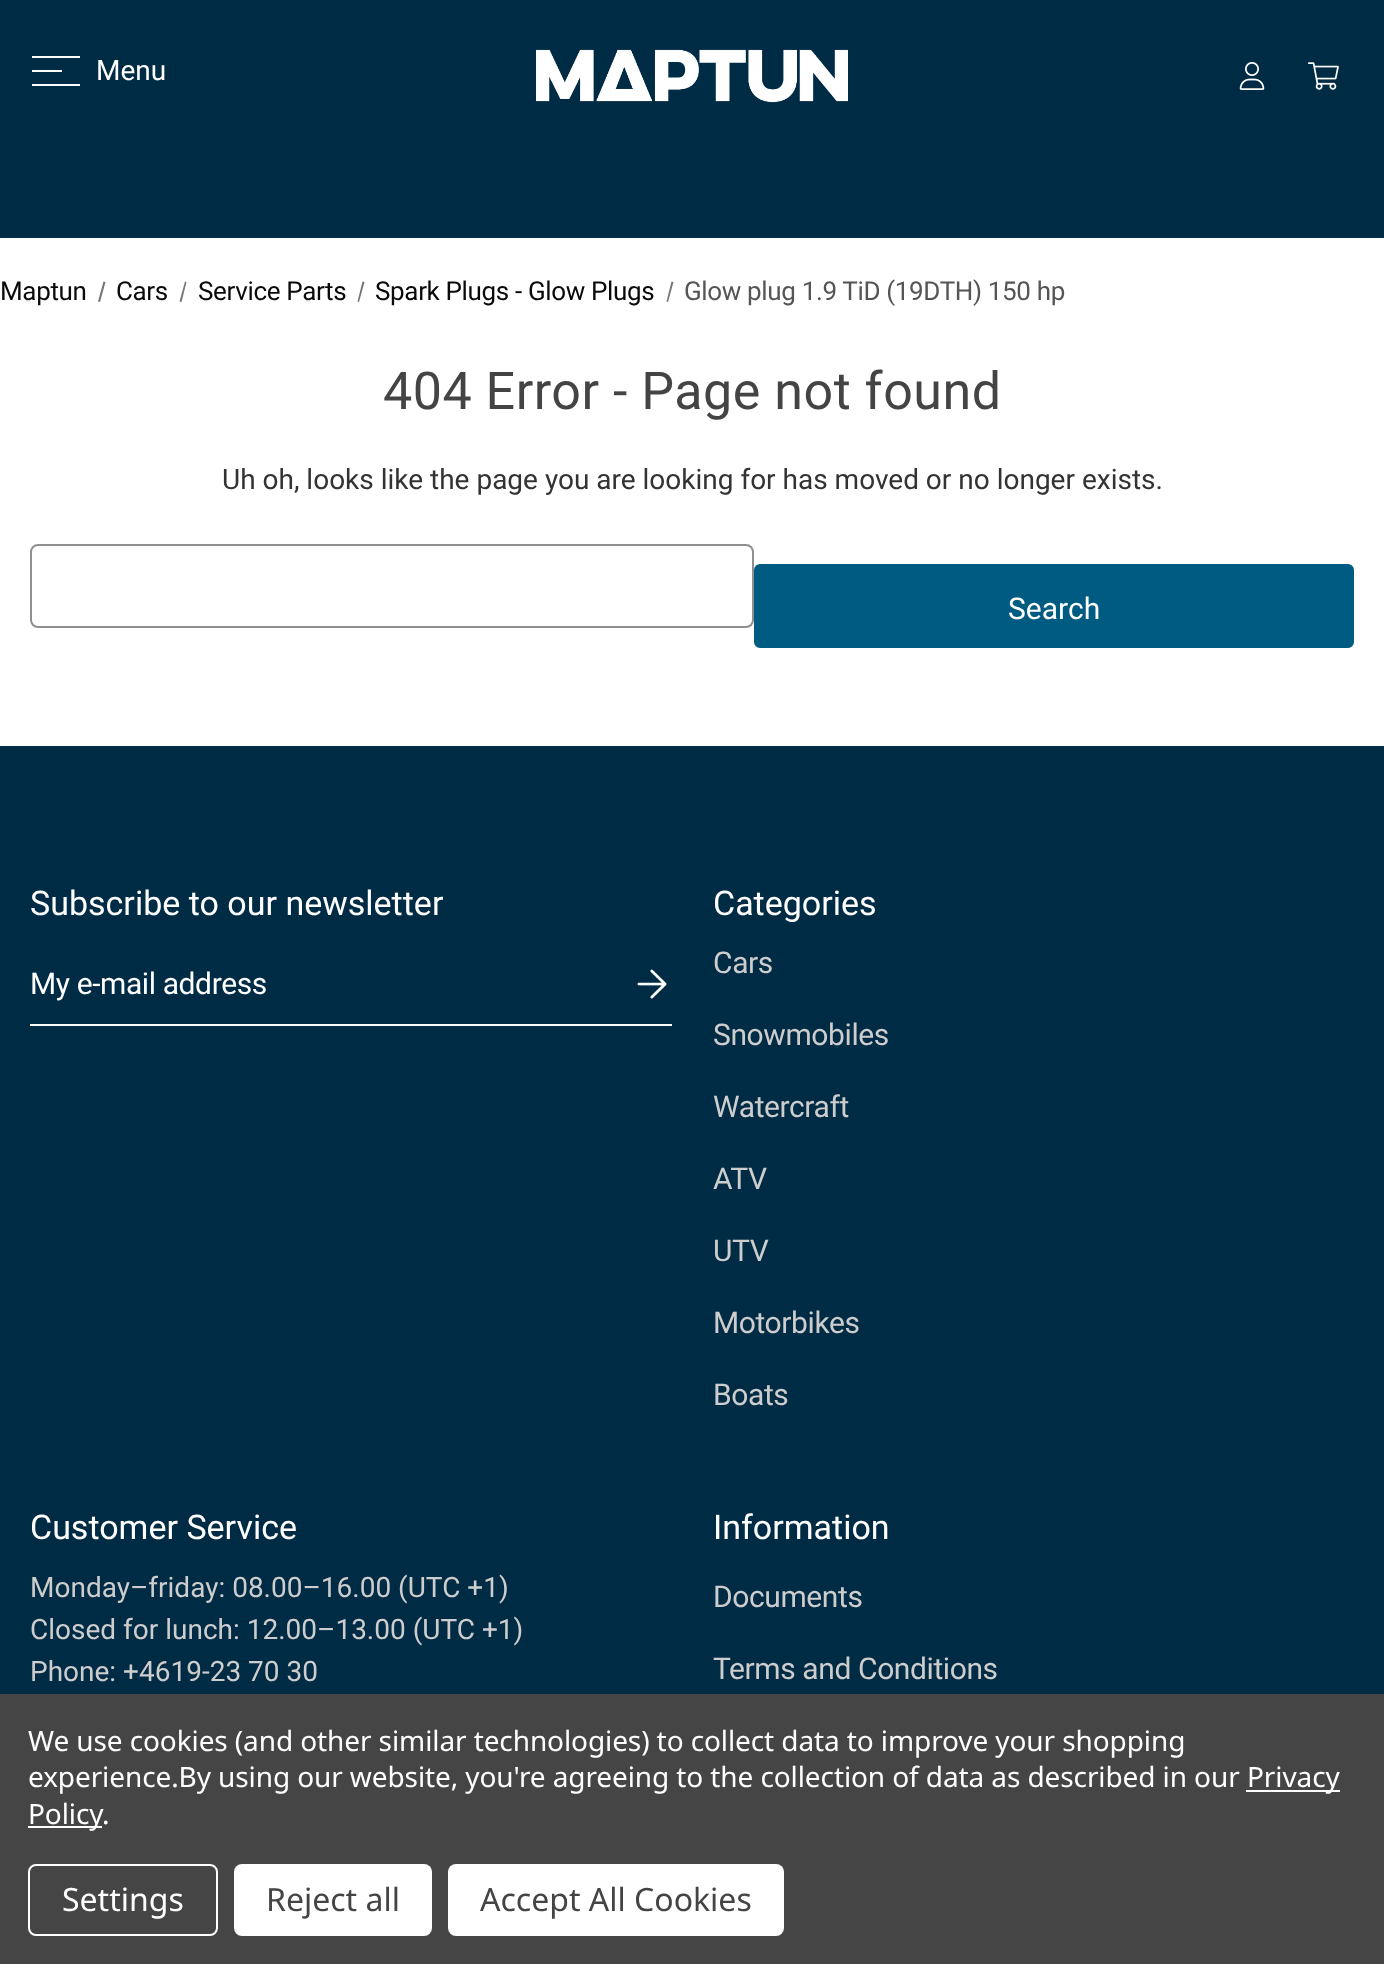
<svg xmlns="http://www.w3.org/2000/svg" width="1384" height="1964">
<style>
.a{font:28px Roboto;fill:#fff}
.b{font:26px Roboto;letter-spacing:-0.35px;fill:#0a0a0a}
.c{font:26px Roboto;letter-spacing:-0.35px;fill:#555}
.d{font:52px Roboto;letter-spacing:0.5px;fill:#444}
.e{font:28px Roboto;fill:#333}
.f{font:30px Roboto;fill:#fff}
.g{font:34px Roboto;fill:#fff}
.h{font:30px Roboto;letter-spacing:-0.4px;fill:#fff}
.i{font:30px Roboto;letter-spacing:-0.4px;fill:#cdcdcd}
.j{font:28px Roboto;fill:#cdcdcd}
.k{font:28px Noto Sans;letter-spacing:-0.1px;fill:#fff}
.l{font:32px Noto Sans;fill:#fff}
.m{font:32px Noto Sans;fill:#444}
</style>
<rect width="100%" height="100%" fill="#fff"/>
<path fill="#002b45" d="M0 0h1384v238H0z"/>
<path fill="#fff" fill-rule="evenodd" d="M32 56h48v2h-48zm0 28h48v2h-48zm0-14h30v2h-30z"/>
<image href="1.png" x="536" y="49" width="312" height="54"/>
<image href="2.png" x="1239" y="62" width="26" height="28"/>
<image href="3.png" x="1308" y="62" width="31" height="28"/>
<path fill="#757575" d="M103.5 281.5l2 .5l-5.5 20l-2-.5z"/>
<path fill="#757575" d="M185 281.5l1.5 .5l-5 20l-2-.5z"/>
<path fill="#757575" d="M362.5 281.5l2 .5l-5.5 20l-1.5-.5z"/>
<path fill="#757575" d="M671.5 281.5l2 .5l-5.5 20l-1.5-.5z"/>
<rect fill="none" stroke="#8f8f8f" stroke-width="2" x="31" y="545" width="722" height="82" rx="7"/>
<rect fill="#005b82" stroke="#005b82" stroke-width="2" x="755" y="565" width="598" height="82" rx="5"/>
<path fill="#002b45" d="M0 746h1384v948H0z"/>
<path fill="#fff" d="M30 1024h642v2H30z"/>
<image href="4.png" x="637" y="969" width="30" height="30"/>
<path fill="#454545" d="M0 1694h1384v270H0z"/>
<path fill="#fff" d="M1246 1790h94v2H1246z"/>
<path fill="#fff" d="M28 1826h74v2H28z"/>
<rect fill="none" stroke="#fff" stroke-width="2" x="29" y="1865" width="188" height="70" rx="7"/>
<rect fill="#fff" x="234" y="1864" width="198" height="72" rx="8"/>
<rect fill="#fff" x="448" y="1864" width="336" height="72" rx="8"/>
<text class="a" x="96" y="80">Menu</text>
<text class="b" x="0" y="300">Maptun</text>
<text class="b" x="116" y="300">Cars</text>
<text class="b" x="198" y="300">Service Parts</text>
<text class="b" x="375" y="300">Spark Plugs - Glow Plugs</text>
<text class="c" x="684" y="300">Glow plug 1.9 TiD (19DTH) 150 hp</text>
<text class="d" x="383" y="409">404 Error - Page not found</text>
<text class="e" x="222" y="489">Uh oh, looks like the page you are looking for has moved or no longer exists.</text>
<text class="f" x="1008" y="619">Search</text>
<text class="g" x="30" y="915">Subscribe to our newsletter</text>
<text class="h" x="30" y="994">My e-mail address</text>
<text class="g" x="713" y="915">Categories</text>
<text class="i" x="713" y="973">Cars</text>
<text class="i" x="713" y="1045">Snowmobiles</text>
<text class="i" x="713" y="1117">Watercraft</text>
<text class="i" x="713" y="1189">ATV</text>
<text class="i" x="713" y="1261">UTV</text>
<text class="i" x="713" y="1333">Motorbikes</text>
<text class="i" x="713" y="1405">Boats</text>
<text class="g" x="30" y="1539">Customer Service</text>
<text class="j" x="30" y="1597">Monday–friday: 08.00–16.00 (UTC +1)</text>
<text class="j" x="30" y="1639">Closed for lunch: 12.00–13.00 (UTC +1)</text>
<text class="j" x="30" y="1681">Phone: +4619-23 70 30</text>
<text class="g" x="713" y="1539">Information</text>
<text class="i" x="713" y="1607">Documents</text>
<text class="i" x="713" y="1679">Terms and Conditions</text>
<text class="k" x="28" y="1751">We use cookies (and other similar technologies) to collect data to improve your shopping</text>
<text class="k" x="28" y="1787">experience.By using our website, you're agreeing to the collection of data as described in our</text>
<text class="k" x="1247" y="1787">Privacy</text>
<text class="k" x="28" y="1824">Policy</text>
<text class="k" x="102" y="1824">.</text>
<text class="l" x="62" y="1911">Settings</text>
<text class="m" x="266" y="1911">Reject all</text>
<text class="m" x="480" y="1911">Accept All Cookies</text>
</svg>
